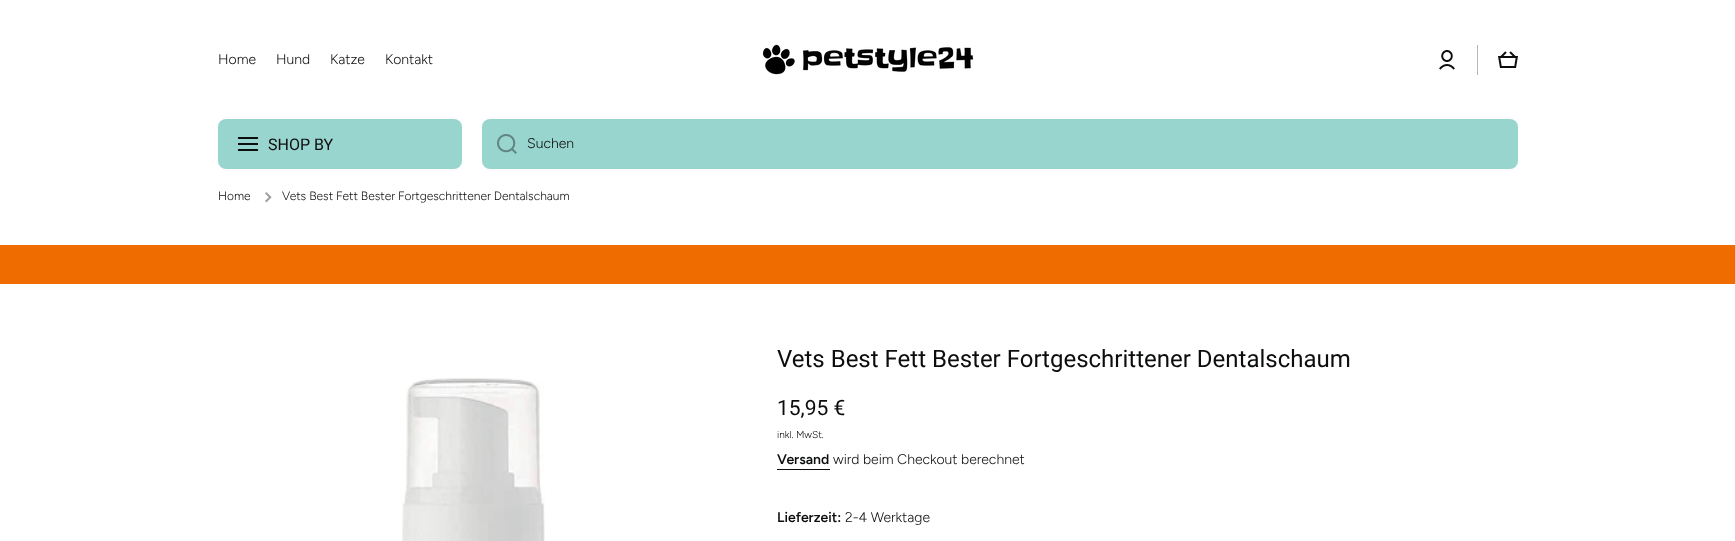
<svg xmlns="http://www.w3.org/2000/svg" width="1735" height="541">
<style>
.a{font:300 14px Figtree;fill:#0c0d0d}
.b{font:16px Roboto;fill:#0c0d0d}
.c{font:300 12px Figtree;fill:#0c0d0d}
.d{font:24px Roboto;fill:#0c0d0d}
.e{font:21px Roboto;fill:#0c0d0d}
.f{font:300 10px Figtree;fill:#0c0d0d}
.g{font:600 14px Figtree;fill:#0c0d0d}
</style>
<rect width="100%" height="100%" fill="#fff"/>
<image href="1.png" x="762" y="44" width="212" height="31"/>
<image href="2.png" x="1439" y="50" width="16" height="20"/>
<path fill="#b6b6b6" d="M1477 45h1v30H1477z"/>
<image href="3.png" x="1498" y="51" width="20" height="17"/>
<rect fill="#99d5cf" x="218" y="119" width="244" height="50" rx="8"/>
<path fill="#0c0d0d" d="M238 137h20v2H238z"/>
<path fill="#0c0d0d" d="M238 143h20v2H238z"/>
<path fill="#0c0d0d" d="M238 149h20v2H238z"/>
<rect fill="#99d5cf" x="482" y="119" width="1036" height="50" rx="8"/>
<image href="4.png" x="497" y="134" width="20" height="20"/>
<image href="5.png" x="265" y="192" width="7" height="11"/>
<path fill="#ef6c00" d="M0 245h1735v39H0z"/>
<image href="6.png" x="402" y="378" width="143" height="163"/>
<path fill="#0c0d0d" d="M777 469h53v1H777z"/>
<text class="a" x="218" y="64">Home</text>
<text class="a" x="276" y="64">Hund</text>
<text class="a" x="330" y="64">Katze</text>
<text class="a" x="385" y="64">Kontakt</text>
<text class="b" x="268" y="150">SHOP BY</text>
<text class="a" x="527" y="148">Suchen</text>
<text class="c" x="218" y="200">Home</text>
<text class="c" x="282" y="200">Vets Best Fett Bester Fortgeschrittener Dentalschaum</text>
<text class="d" x="777" y="367">Vets Best Fett Bester Fortgeschrittener Dentalschaum</text>
<text class="e" x="777" y="415">15,95 €</text>
<text class="f" x="777" y="438">inkl. MwSt.</text>
<text class="g" x="777" y="464">Versand</text>
<text class="a" x="833" y="464">wird beim Checkout berechnet</text>
<text class="g" x="777" y="522">Lieferzeit:</text>
<text class="a" x="845" y="522">2-4 Werktage</text>
</svg>
